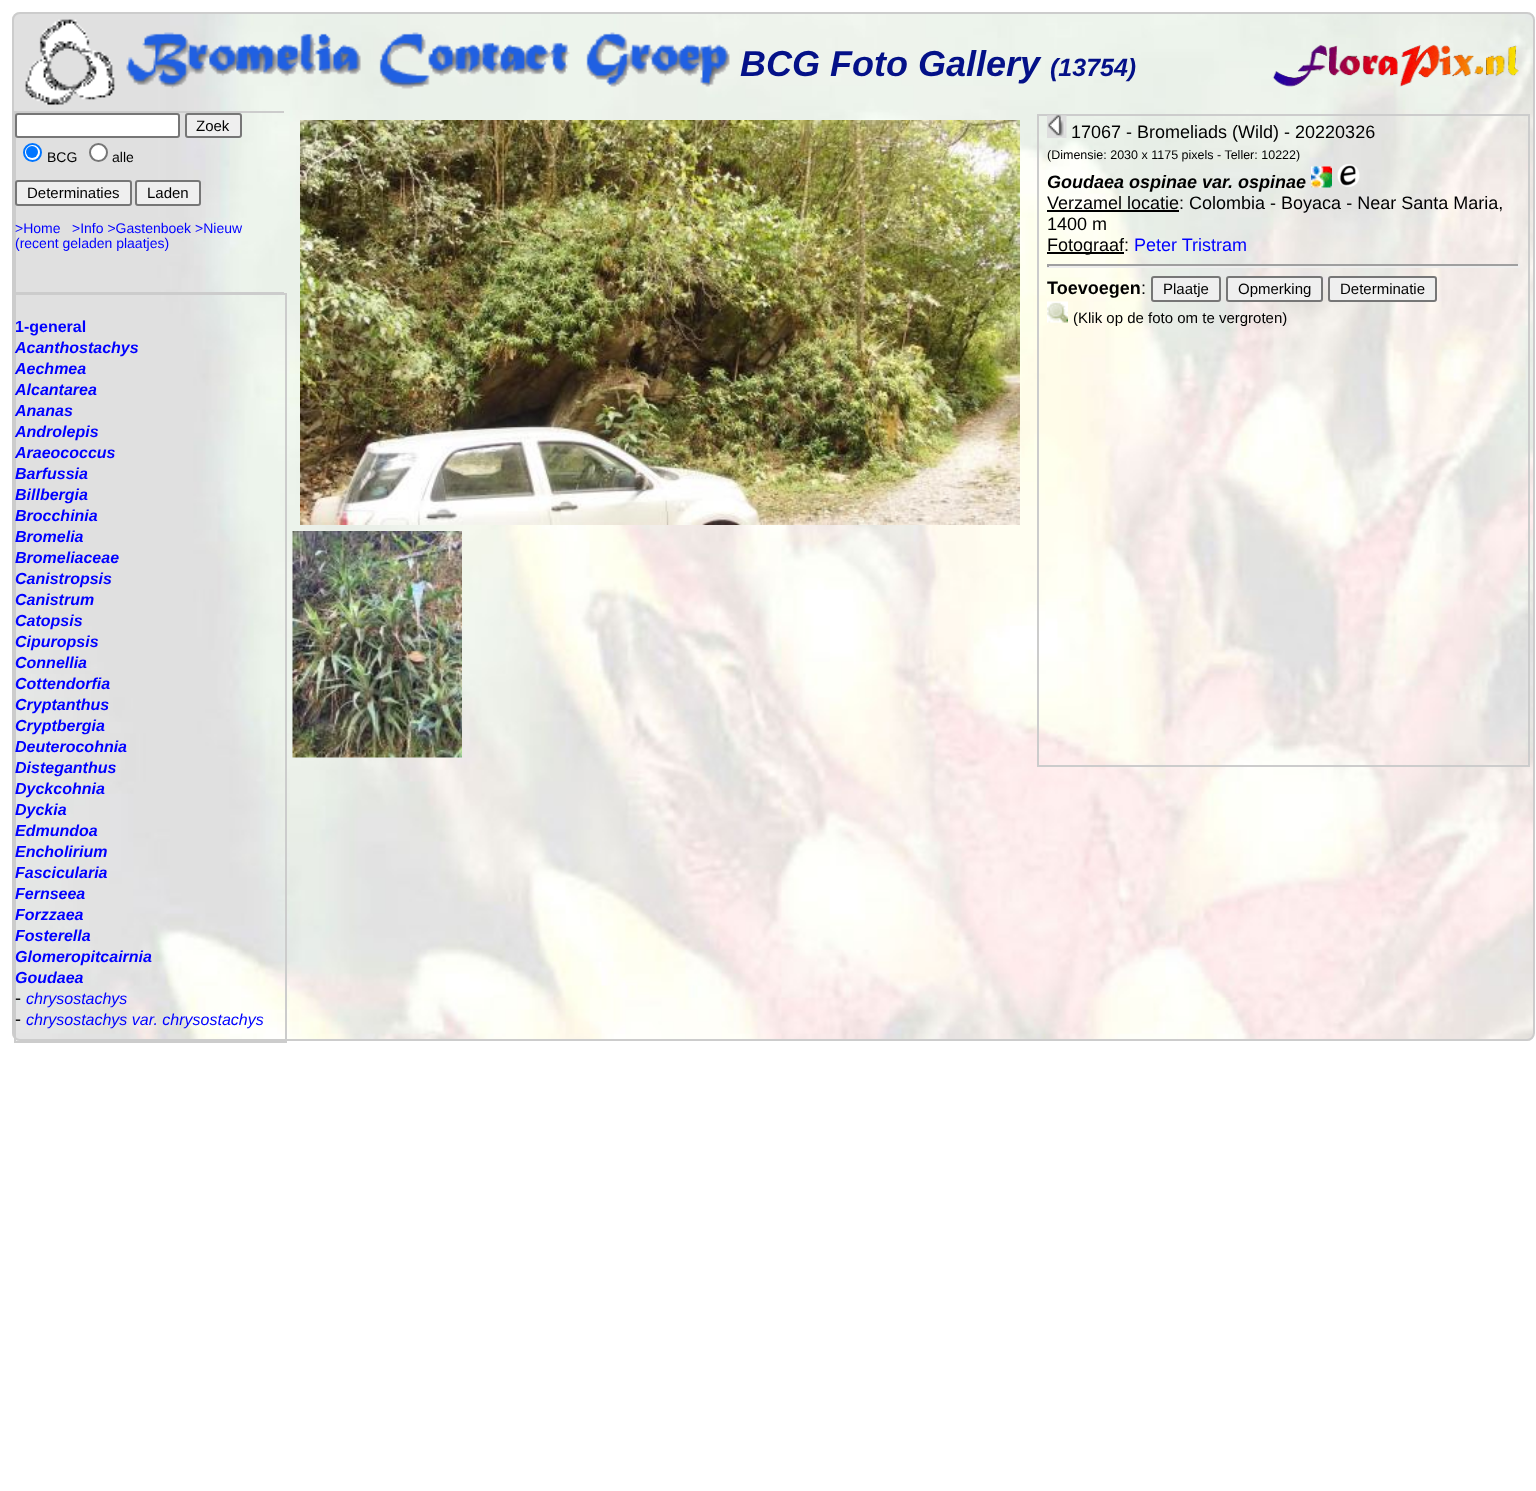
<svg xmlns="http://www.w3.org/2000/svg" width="1536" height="1491">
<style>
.a{font:italic bold 36px Liberation Sans;fill:#041188}
.b{font:italic bold 25px Liberation Sans;fill:#041188}
.c{font:15px Liberation Sans;fill:#000}
.d{font:14px Liberation Sans;fill:#000}
.e{font:14px Liberation Sans;fill:#00f}
.f{font:bold 16px Liberation Sans;fill:#00f}
.g{font:italic bold 16px Liberation Sans;fill:#00f}
.h{font:18px Liberation Sans;fill:#000}
.i{font:italic 16px Liberation Sans;fill:#00f}
.j{font:12.5px Liberation Sans;fill:#000}
.k{font:italic bold 18px Liberation Sans;fill:#000}
.l{font:18px Liberation Sans;fill:#00f}
.m{font:bold 18px Liberation Sans;fill:#000}
</style>
<defs>
<clipPath id="clip1"><path d="M14 111h270v929H14z"/></clipPath>
</defs>
<rect width="100%" height="100%" fill="#fff"/>
<image href="1.png" x="12" y="12" width="1523" height="1029"/>
<rect fill="none" stroke="#ccc" stroke-width="2" x="13" y="13" width="1521" height="1027" rx="7"/>
<image href="2.png" x="25" y="19" width="705" height="86"/>
<image href="3.png" x="1272" y="44" width="247" height="43"/>
<g clip-path="url(#clip1)">
<path fill="none" stroke="#ccc" stroke-width="2" d="M15 112h271v181H15z"/>
</g>
<rect fill="#fff" stroke="#767676" stroke-width="2" x="16" y="114" width="163" height="23" rx="2"/>
<rect fill="#efefef" stroke="#767676" stroke-width="2" x="186" y="114" width="55" height="23" rx="2"/>
<circle fill="#fff" stroke="#0075ff" stroke-width="2" cx="32.5" cy="152.5" r="8.5"/>
<circle fill="#0075ff" cx="32" cy="152" r="6"/>
<circle fill="#fff" stroke="#767676" stroke-width="2" cx="98.5" cy="152.5" r="8.5"/>
<rect fill="#efefef" stroke="#767676" stroke-width="2" x="16" y="181" width="115" height="24" rx="2"/>
<rect fill="#efefef" stroke="#767676" stroke-width="2" x="136" y="181" width="64" height="24" rx="2"/>
<path fill="none" stroke="#ccc" stroke-width="2" d="M15 294h271v748H15z"/>
<image href="4.png" x="300" y="120" width="720" height="405"/>
<image href="5.png" x="292" y="531" width="170" height="227"/>
<path fill="none" stroke="#ccc" stroke-width="2" d="M1038 115h491v651H1038z"/>
<image href="6.png" x="1047" y="115" width="20" height="23"/>
<image href="7.png" x="1311" y="166" width="21" height="22"/>
<image href="8.png" x="1337" y="164" width="23" height="23"/>
<path fill="#000" d="M1047 210h132v2H1047z"/>
<path fill="#000" d="M1047 252h77v2H1047z"/>
<path fill="#9f9f9f" d="M1047 264h473v2H1047z"/>
<path fill="#eee" d="M1518 264h2v3H1518z"/>
<path fill="#eee" d="M1047 266h473v2H1047z"/>
<path fill="#9f9f9f" d="M1047 264h2v3H1047z"/>
<rect fill="#efefef" stroke="#767676" stroke-width="2" x="1152" y="277" width="68" height="24" rx="2"/>
<rect fill="#efefef" stroke="#767676" stroke-width="2" x="1227" y="277" width="95" height="24" rx="2"/>
<rect fill="#efefef" stroke="#767676" stroke-width="2" x="1329" y="277" width="107" height="24" rx="2"/>
<image href="9.png" x="1047" y="301" width="21" height="22"/>
<text class="a" x="740" y="76">BCG Foto Gallery</text>
<text class="b" x="1050" y="76">(13754)</text>
<text class="c" x="196" y="131">Zoek</text>
<text class="d" x="47" y="162">BCG</text>
<text class="d" x="112" y="162">alle</text>
<text class="c" x="27" y="198">Determinaties</text>
<text class="c" x="147" y="198">Laden</text>
<text class="e" x="15" y="233">&gt;Home</text>
<text class="e" x="72" y="233">&gt;Info &gt;Gastenboek &gt;Nieuw</text>
<text class="e" x="15" y="248">(recent geladen plaatjes)</text>
<text class="f" x="15" y="332">1-general</text>
<text class="g" x="15" y="353">Acanthostachys</text>
<text class="g" x="15" y="374">Aechmea</text>
<text class="g" x="15" y="395">Alcantarea</text>
<text class="g" x="15" y="416">Ananas</text>
<text class="g" x="15" y="437">Androlepis</text>
<text class="g" x="15" y="458">Araeococcus</text>
<text class="g" x="15" y="479">Barfussia</text>
<text class="g" x="15" y="500">Billbergia</text>
<text class="g" x="15" y="521">Brocchinia</text>
<text class="g" x="15" y="542">Bromelia</text>
<text class="g" x="15" y="563">Bromeliaceae</text>
<text class="g" x="15" y="584">Canistropsis</text>
<text class="g" x="15" y="605">Canistrum</text>
<text class="g" x="15" y="626">Catopsis</text>
<text class="g" x="15" y="647">Cipuropsis</text>
<text class="g" x="15" y="668">Connellia</text>
<text class="g" x="15" y="689">Cottendorfia</text>
<text class="g" x="15" y="710">Cryptanthus</text>
<text class="g" x="15" y="731">Cryptbergia</text>
<text class="g" x="15" y="752">Deuterocohnia</text>
<text class="g" x="15" y="773">Disteganthus</text>
<text class="g" x="15" y="794">Dyckcohnia</text>
<text class="g" x="15" y="815">Dyckia</text>
<text class="g" x="15" y="836">Edmundoa</text>
<text class="g" x="15" y="857">Encholirium</text>
<text class="g" x="15" y="878">Fascicularia</text>
<text class="g" x="15" y="899">Fernseea</text>
<text class="g" x="15" y="920">Forzzaea</text>
<text class="g" x="15" y="941">Fosterella</text>
<text class="g" x="15" y="962">Glomeropitcairnia</text>
<text class="g" x="15" y="983">Goudaea</text>
<text class="h" x="15" y="1004">-</text>
<text class="i" x="26" y="1004">chrysostachys</text>
<text class="h" x="15" y="1025">-</text>
<text class="i" x="26" y="1025">chrysostachys var. chrysostachys</text>
<text class="h" x="1071" y="138">17067 - Bromeliads (Wild) - 20220326</text>
<text class="j" x="1047" y="159">(Dimensie: 2030 x 1175 pixels - Teller: 10222)</text>
<text class="k" x="1047" y="188">Goudaea ospinae var. ospinae</text>
<text class="h" x="1047" y="209">Verzamel locatie: Colombia - Boyaca - Near Santa Maria,</text>
<text class="h" x="1047" y="230">1400 m</text>
<text class="h" x="1047" y="251">Fotograaf:</text>
<text class="l" x="1134" y="251">Peter Tristram</text>
<text class="m" x="1047" y="294">Toevoegen</text>
<text class="h" x="1141" y="294">:</text>
<text class="c" x="1163" y="294">Plaatje</text>
<text class="c" x="1238" y="294">Opmerking</text>
<text class="c" x="1340" y="294">Determinatie</text>
<text class="c" x="1073" y="323">(Klik op de foto om te vergroten)</text>
</svg>
